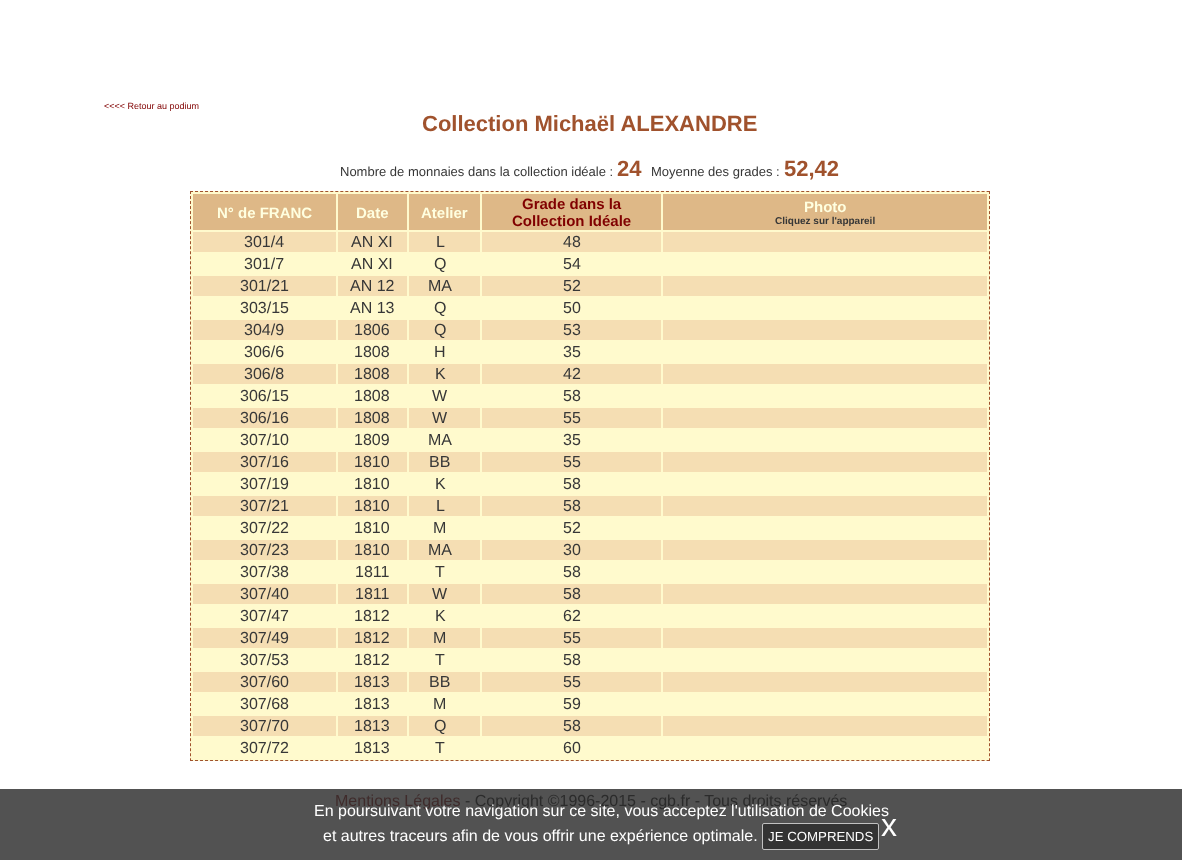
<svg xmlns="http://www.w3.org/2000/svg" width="1182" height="860">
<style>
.a{font:9px Liberation Sans;fill:#800000}
.b{font:bold 22px Liberation Sans;fill:#a0522d}
.c{font:13px Liberation Sans;fill:#373737}
.d{font:bold 15px Liberation Sans;fill:#ffffe0}
.e{font:bold 15px Liberation Sans;fill:#800000}
.f{font:bold 10px Liberation Sans;fill:#373737}
.g{font:16px Liberation Sans;fill:#373737}
.h{font:16px Liberation Sans;fill:#3f2b2b}
.i{font:16px Liberation Sans;fill:#2b2b2b}
.j{font:16px Liberation Sans;fill:#fff}
.k{font:13.25px Liberation Sans;fill:#fff}
.l{font:32px Liberation Sans;fill:#fff}
</style>
<rect width="100%" height="100%" fill="#fff"/>
<path fill="#525252" d="M0 789h1182v71H0z"/>
<path fill="#fffacd" d="M190 191h800v570H190z"/>
<path fill="none" stroke="#a0522d" stroke-dasharray="3 2.01" d="M190 191.5h800"/>
<path fill="none" stroke="#a0522d" stroke-dasharray="3 2.02" d="M989.5 191v570"/>
<path fill="none" stroke="#a0522d" stroke-dasharray="3 2.01" d="M190 760.5h800"/>
<path fill="none" stroke="#a0522d" stroke-dasharray="3 2.02" d="M190.5 191v570"/>
<path fill="#deb887" d="M193 194h143v36H193z"/>
<path fill="#deb887" d="M338 194h69v36H338z"/>
<path fill="#deb887" d="M409 194h71v36H409z"/>
<path fill="#deb887" d="M482 194h179v36H482z"/>
<path fill="#deb887" d="M663 194h324v36H663z"/>
<path fill="#f5deb3" d="M193 232h143v20H193z"/>
<path fill="#f5deb3" d="M338 232h69v20H338z"/>
<path fill="#f5deb3" d="M409 232h71v20H409z"/>
<path fill="#f5deb3" d="M482 232h179v20H482z"/>
<path fill="#f5deb3" d="M663 232h324v20H663z"/>
<path fill="#f5deb3" d="M193 276h143v20H193z"/>
<path fill="#f5deb3" d="M338 276h69v20H338z"/>
<path fill="#f5deb3" d="M409 276h71v20H409z"/>
<path fill="#f5deb3" d="M482 276h179v20H482z"/>
<path fill="#f5deb3" d="M663 276h324v20H663z"/>
<path fill="#f5deb3" d="M193 320h143v20H193z"/>
<path fill="#f5deb3" d="M338 320h69v20H338z"/>
<path fill="#f5deb3" d="M409 320h71v20H409z"/>
<path fill="#f5deb3" d="M482 320h179v20H482z"/>
<path fill="#f5deb3" d="M663 320h324v20H663z"/>
<path fill="#f5deb3" d="M193 364h143v20H193z"/>
<path fill="#f5deb3" d="M338 364h69v20H338z"/>
<path fill="#f5deb3" d="M409 364h71v20H409z"/>
<path fill="#f5deb3" d="M482 364h179v20H482z"/>
<path fill="#f5deb3" d="M663 364h324v20H663z"/>
<path fill="#f5deb3" d="M193 408h143v20H193z"/>
<path fill="#f5deb3" d="M338 408h69v20H338z"/>
<path fill="#f5deb3" d="M409 408h71v20H409z"/>
<path fill="#f5deb3" d="M482 408h179v20H482z"/>
<path fill="#f5deb3" d="M663 408h324v20H663z"/>
<path fill="#f5deb3" d="M193 452h143v20H193z"/>
<path fill="#f5deb3" d="M338 452h69v20H338z"/>
<path fill="#f5deb3" d="M409 452h71v20H409z"/>
<path fill="#f5deb3" d="M482 452h179v20H482z"/>
<path fill="#f5deb3" d="M663 452h324v20H663z"/>
<path fill="#f5deb3" d="M193 496h143v20H193z"/>
<path fill="#f5deb3" d="M338 496h69v20H338z"/>
<path fill="#f5deb3" d="M409 496h71v20H409z"/>
<path fill="#f5deb3" d="M482 496h179v20H482z"/>
<path fill="#f5deb3" d="M663 496h324v20H663z"/>
<path fill="#f5deb3" d="M193 540h143v20H193z"/>
<path fill="#f5deb3" d="M338 540h69v20H338z"/>
<path fill="#f5deb3" d="M409 540h71v20H409z"/>
<path fill="#f5deb3" d="M482 540h179v20H482z"/>
<path fill="#f5deb3" d="M663 540h324v20H663z"/>
<path fill="#f5deb3" d="M193 584h143v20H193z"/>
<path fill="#f5deb3" d="M338 584h69v20H338z"/>
<path fill="#f5deb3" d="M409 584h71v20H409z"/>
<path fill="#f5deb3" d="M482 584h179v20H482z"/>
<path fill="#f5deb3" d="M663 584h324v20H663z"/>
<path fill="#f5deb3" d="M193 628h143v20H193z"/>
<path fill="#f5deb3" d="M338 628h69v20H338z"/>
<path fill="#f5deb3" d="M409 628h71v20H409z"/>
<path fill="#f5deb3" d="M482 628h179v20H482z"/>
<path fill="#f5deb3" d="M663 628h324v20H663z"/>
<path fill="#f5deb3" d="M193 672h143v20H193z"/>
<path fill="#f5deb3" d="M338 672h69v20H338z"/>
<path fill="#f5deb3" d="M409 672h71v20H409z"/>
<path fill="#f5deb3" d="M482 672h179v20H482z"/>
<path fill="#f5deb3" d="M663 672h324v20H663z"/>
<path fill="#f5deb3" d="M193 716h143v20H193z"/>
<path fill="#f5deb3" d="M338 716h69v20H338z"/>
<path fill="#f5deb3" d="M409 716h71v20H409z"/>
<path fill="#f5deb3" d="M482 716h179v20H482z"/>
<path fill="#f5deb3" d="M663 716h324v20H663z"/>
<rect fill="#333" stroke="#c0c0c0" x="762.5" y="823.5" width="116" height="26" rx="1.5"/>
<text class="a" x="104" y="109">&lt;&lt;&lt;&lt; Retour au podium</text>
<text class="b" x="422" y="131">Collection Michaël ALEXANDRE</text>
<text class="c" x="340" y="176">Nombre de monnaies dans la collection idéale :</text>
<text class="b" x="617" y="176">24</text>
<text class="c" x="651" y="176">Moyenne des grades :</text>
<text class="b" x="784" y="176">52,42</text>
<text class="d" x="217" y="218">N° de FRANC</text>
<text class="d" x="356" y="218">Date</text>
<text class="d" x="421" y="218">Atelier</text>
<text class="e" x="522" y="209">Grade dans la</text>
<text class="e" x="512" y="226">Collection Idéale</text>
<text class="d" x="804" y="212">Photo</text>
<text class="f" x="775" y="224">Cliquez sur l'appareil</text>
<text class="g" x="244" y="247">301/4</text>
<text class="g" x="351" y="247">AN XI</text>
<text class="g" x="436" y="247">L</text>
<text class="g" x="563" y="247">48</text>
<text class="g" x="244" y="269">301/7</text>
<text class="g" x="351" y="269">AN XI</text>
<text class="g" x="434" y="269">Q</text>
<text class="g" x="563" y="269">54</text>
<text class="g" x="240" y="291">301/21</text>
<text class="g" x="350" y="291">AN 12</text>
<text class="g" x="428" y="291">MA</text>
<text class="g" x="563" y="291">52</text>
<text class="g" x="240" y="313">303/15</text>
<text class="g" x="350" y="313">AN 13</text>
<text class="g" x="434" y="313">Q</text>
<text class="g" x="563" y="313">50</text>
<text class="g" x="244" y="335">304/9</text>
<text class="g" x="354" y="335">1806</text>
<text class="g" x="434" y="335">Q</text>
<text class="g" x="563" y="335">53</text>
<text class="g" x="244" y="357">306/6</text>
<text class="g" x="354" y="357">1808</text>
<text class="g" x="434" y="357">H</text>
<text class="g" x="563" y="357">35</text>
<text class="g" x="244" y="379">306/8</text>
<text class="g" x="354" y="379">1808</text>
<text class="g" x="435" y="379">K</text>
<text class="g" x="563" y="379">42</text>
<text class="g" x="240" y="401">306/15</text>
<text class="g" x="354" y="401">1808</text>
<text class="g" x="432" y="401">W</text>
<text class="g" x="563" y="401">58</text>
<text class="g" x="240" y="423">306/16</text>
<text class="g" x="354" y="423">1808</text>
<text class="g" x="432" y="423">W</text>
<text class="g" x="563" y="423">55</text>
<text class="g" x="240" y="445">307/10</text>
<text class="g" x="354" y="445">1809</text>
<text class="g" x="428" y="445">MA</text>
<text class="g" x="563" y="445">35</text>
<text class="g" x="240" y="467">307/16</text>
<text class="g" x="354" y="467">1810</text>
<text class="g" x="429" y="467">BB</text>
<text class="g" x="563" y="467">55</text>
<text class="g" x="240" y="489">307/19</text>
<text class="g" x="354" y="489">1810</text>
<text class="g" x="435" y="489">K</text>
<text class="g" x="563" y="489">58</text>
<text class="g" x="240" y="511">307/21</text>
<text class="g" x="354" y="511">1810</text>
<text class="g" x="436" y="511">L</text>
<text class="g" x="563" y="511">58</text>
<text class="g" x="240" y="533">307/22</text>
<text class="g" x="354" y="533">1810</text>
<text class="g" x="433" y="533">M</text>
<text class="g" x="563" y="533">52</text>
<text class="g" x="240" y="555">307/23</text>
<text class="g" x="354" y="555">1810</text>
<text class="g" x="428" y="555">MA</text>
<text class="g" x="563" y="555">30</text>
<text class="g" x="240" y="577">307/38</text>
<text class="g" x="355" y="577">1811</text>
<text class="g" x="435" y="577">T</text>
<text class="g" x="563" y="577">58</text>
<text class="g" x="240" y="599">307/40</text>
<text class="g" x="355" y="599">1811</text>
<text class="g" x="432" y="599">W</text>
<text class="g" x="563" y="599">58</text>
<text class="g" x="240" y="621">307/47</text>
<text class="g" x="354" y="621">1812</text>
<text class="g" x="435" y="621">K</text>
<text class="g" x="563" y="621">62</text>
<text class="g" x="240" y="643">307/49</text>
<text class="g" x="354" y="643">1812</text>
<text class="g" x="433" y="643">M</text>
<text class="g" x="563" y="643">55</text>
<text class="g" x="240" y="665">307/53</text>
<text class="g" x="354" y="665">1812</text>
<text class="g" x="435" y="665">T</text>
<text class="g" x="563" y="665">58</text>
<text class="g" x="240" y="687">307/60</text>
<text class="g" x="354" y="687">1813</text>
<text class="g" x="429" y="687">BB</text>
<text class="g" x="563" y="687">55</text>
<text class="g" x="240" y="709">307/68</text>
<text class="g" x="354" y="709">1813</text>
<text class="g" x="433" y="709">M</text>
<text class="g" x="563" y="709">59</text>
<text class="g" x="240" y="731">307/70</text>
<text class="g" x="354" y="731">1813</text>
<text class="g" x="434" y="731">Q</text>
<text class="g" x="563" y="731">58</text>
<text class="g" x="240" y="753">307/72</text>
<text class="g" x="354" y="753">1813</text>
<text class="g" x="435" y="753">T</text>
<text class="g" x="563" y="753">60</text>
<text class="h" x="335" y="806">Mentions Légales</text>
<text class="i" x="465" y="806">- Copyright ©1996-2015 - cgb.fr - Tous droits réservés</text>
<text class="j" x="314" y="816">En poursuivant votre navigation sur ce site, vous acceptez l'utilisation de Cookies</text>
<text class="j" x="323" y="841">et autres traceurs afin de vous offrir une expérience optimale.</text>
<text class="k" x="768" y="841">JE COMPRENDS</text>
<text class="l" x="881" y="836">x</text>
</svg>
